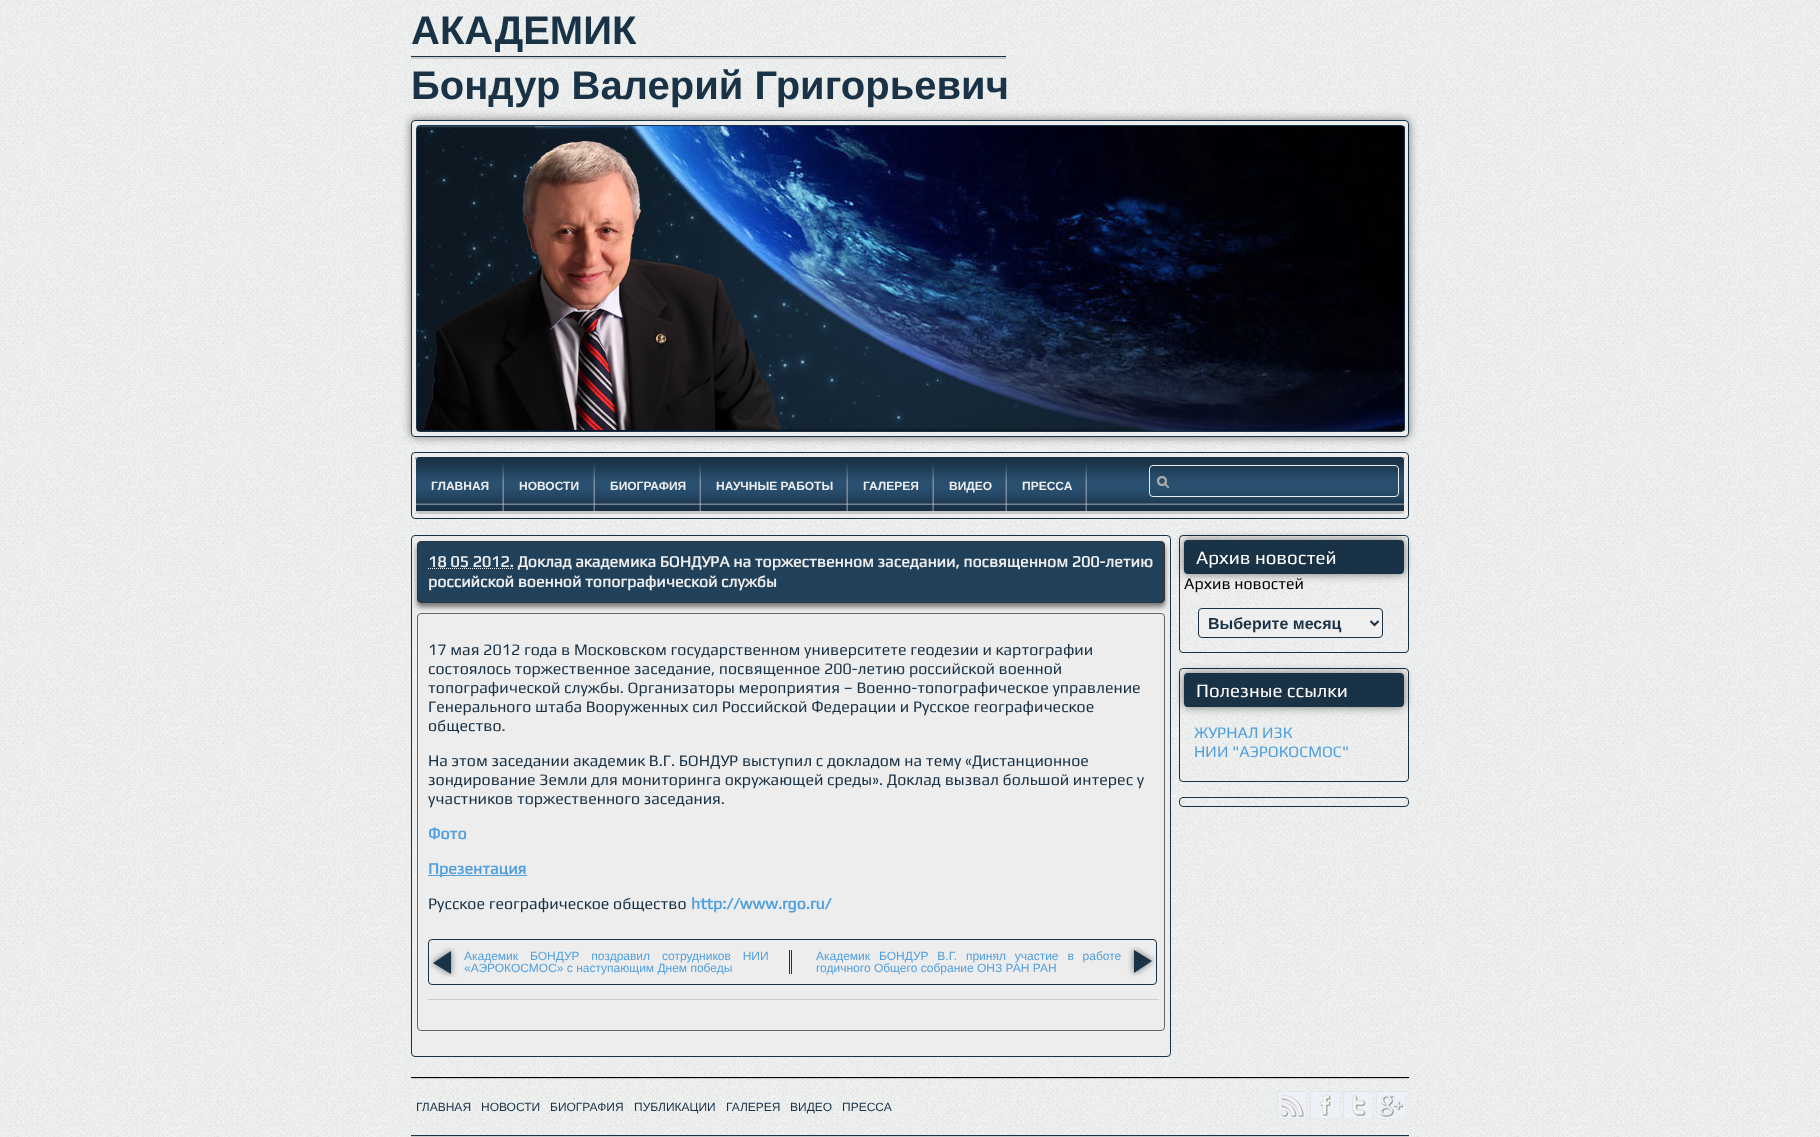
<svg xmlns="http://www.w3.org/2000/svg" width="1820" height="1137">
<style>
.a{font:bold 40px Liberation Sans;fill:#193246}
.b{font:bold 12px Liberation Sans;fill:#ededed}
.c{font:bold 16px Play;fill:#ededed}
.d{font:16px Play;fill:#193246}
.e{font:bold 16px Play;fill:#509fdf}
.f{font:12px Liberation Sans;fill:#509fdf}
.g{font:18.75px Play;fill:#fff}
.h{font:16px Play;fill:#000}
.i{font:bold 16px Liberation Sans;fill:#193246}
.j{font:16px Play;fill:#509fdf}
.k{font:12px Liberation Sans;fill:#193246}
</style>
<rect width="100%" height="100%" fill="#fff"/>
<image href="1.png" x="0" y="0" width="1820" height="1137"/>
<path fill="#193246" d="M411 56h595v1H411z"/>
<path fill="#ccc" d="M411 57h595v2H411z"/>
<rect fill="#00000080" filter="blur(5px)" x="411" y="120" width="998" height="317" rx="4"/>
<rect fill="#ededed" stroke="#193246" x="411.5" y="120.5" width="997" height="316" rx="3.5"/>
<image href="2.png" x="417" y="126" width="988" height="305"/>
<rect fill="none" stroke="#193246" x="416.5" y="125.5" width="988" height="306" rx="3.5"/>
<image href="3.png" x="423" y="140" width="359" height="290"/>
<rect fill="#ededed" stroke="#193246" x="411.5" y="452.5" width="997" height="66" rx="3.5"/>
<image href="4.png" x="415" y="457" width="990" height="57"/>
<rect fill="none" stroke="#ededed" x="415.5" y="456.5" width="989" height="58" rx="3.5"/>
<image href="5.png" x="502" y="463" width="2" height="48"/>
<image href="5.png" x="593" y="463" width="2" height="48"/>
<image href="5.png" x="699" y="463" width="2" height="48"/>
<image href="5.png" x="846" y="463" width="2" height="48"/>
<image href="5.png" x="932" y="463" width="2" height="48"/>
<image href="5.png" x="1005" y="463" width="2" height="48"/>
<image href="5.png" x="1085" y="463" width="2" height="48"/>
<image href="6.png" x="1157" y="476" width="12" height="12"/>
<rect fill="none" stroke="#ededed" x="1149.5" y="465.5" width="249" height="31" rx="3.5"/>
<rect fill="#ededed" stroke="#193246" x="411.5" y="535.5" width="759" height="521" rx="3.5"/>
<rect fill="#00000080" filter="blur(2.5px)" x="417" y="545" width="748" height="62" rx="4"/>
<rect fill="#21415a" stroke="#333" x="417.5" y="541.5" width="747" height="61" rx="3.5"/>
<path fill="none" stroke="#ededed" stroke-dasharray="1 1" d="M428 568.5h86"/>
<rect fill="none" stroke="#666" x="417.5" y="613.5" width="747" height="417" rx="3.5"/>
<path fill="#509fdf" d="M428 875h99v1H428z"/>
<image href="7.png" x="429" y="947" width="727" height="30"/>
<rect fill="none" stroke="#193246" x="428.5" y="939.5" width="728" height="45" rx="3.5"/>
<path fill="#193246" d="M789 950h1v24H789z"/>
<path fill="#193246" d="M791 950h1v24H791z"/>
<path fill="#ccc" d="M428 999h731v1H428z"/>
<rect fill="none" stroke="#193246" x="1179.5" y="535.5" width="229" height="117" rx="3.5"/>
<rect fill="#00000080" filter="blur(5px)" x="1184" y="540" width="220" height="34" rx="4"/>
<rect fill="#193246" stroke="#193246" stroke-width="2" x="1185" y="541" width="218" height="32" rx="3"/>
<rect fill="#efefef" stroke="#193246" x="1198.5" y="608.5" width="184" height="29" rx="3.5"/>
<path fill="none" stroke="#193246" stroke-width="2" d="M1370.5 621l4 4l4-4"/>
<rect fill="none" stroke="#193246" x="1179.5" y="668.5" width="229" height="113" rx="3.5"/>
<rect fill="#00000080" filter="blur(5px)" x="1184" y="673" width="220" height="34" rx="4"/>
<rect fill="#193246" stroke="#193246" stroke-width="2" x="1185" y="674" width="218" height="32" rx="3"/>
<rect fill="none" stroke="#193246" x="1179.5" y="797.5" width="229" height="9" rx="3.5"/>
<path fill="#000" d="M411 1077h998v1H411z"/>
<path fill="#ccc" d="M411 1078h998v1H411z"/>
<path fill="#193246" d="M411 1135h998v1H411z"/>
<image href="8.png" x="1277" y="1091" width="30" height="28"/>
<image href="9.png" x="1310" y="1091" width="30" height="28"/>
<image href="10.png" x="1343" y="1091" width="30" height="28"/>
<image href="11.png" x="1376" y="1091" width="30" height="28"/>
<path fill="#ccc" d="M411 1136h998v1H411z"/>
<text class="a" x="411" y="44">АКАДЕМИК</text>
<text class="a" x="411" y="99">Бондур Валерий Григорьевич</text>
<text class="b" x="431" y="490">ГЛАВНАЯ</text>
<text class="b" x="519" y="490">НОВОСТИ</text>
<text class="b" x="610" y="490">БИОГРАФИЯ</text>
<text class="b" x="716" y="490">НАУЧНЫЕ РАБОТЫ</text>
<text class="b" x="863" y="490">ГАЛЕРЕЯ</text>
<text class="b" x="949" y="490">ВИДЕО</text>
<text class="b" x="1022" y="490">ПРЕССА</text>
<text class="c" x="428" y="567">18 05 2012. Доклад академика БОНДУРА на торжественном заседании, посвященном 200-летию</text>
<text class="c" x="428" y="587">российской военной топографической службы</text>
<text class="d" x="428" y="655">17 мая 2012 года в Московском государственном университете геодезии и картографии</text>
<text class="d" x="428" y="674">состоялось торжественное заседание, посвященное 200-летию российской военной</text>
<text class="d" x="428" y="693">топографической службы. Организаторы мероприятия – Военно-топографическое управление</text>
<text class="d" x="428" y="712">Генерального штаба Вооруженных сил Российской Федерации и Русское географическое</text>
<text class="d" x="428" y="731">общество.</text>
<text class="d" x="428" y="766">На этом заседании академик В.Г. БОНДУР выступил с докладом на тему «Дистанционное</text>
<text class="d" x="428" y="785">зондирование Земли для мониторинга окружающей среды». Доклад вызвал большой интерес у</text>
<text class="d" x="428" y="804">участников торжественного заседания.</text>
<text class="e" x="428" y="839">Фото</text>
<text class="e" x="428" y="874">Презентация</text>
<text class="d" x="428" y="909">Русское географическое общество</text>
<text class="e" x="691" y="909">http://www.rgo.ru/</text>
<text class="f" x="464" y="960" word-spacing="8.5">Академик БОНДУР поздравил сотрудников НИИ</text>
<text class="f" x="464" y="972">«АЭРОКОСМОС» с наступающим Днем победы</text>
<text class="f" x="816" y="960" word-spacing="5.5">Академик БОНДУР В.Г. принял участие в работе</text>
<text class="f" x="816" y="972">годичного Общего собрание ОНЗ РАН РАН</text>
<text class="g" x="1196" y="564">Архив новостей</text>
<text class="h" x="1184" y="589">Архив новостей</text>
<text class="i" x="1208" y="629">Выберите месяц</text>
<text class="g" x="1196" y="697">Полезные ссылки</text>
<text class="j" x="1194" y="738">ЖУРНАЛ ИЗК</text>
<text class="j" x="1194" y="757">НИИ "АЭРОКОСМОС"</text>
<text class="k" x="416" y="1111">ГЛАВНАЯ</text>
<text class="k" x="481" y="1111">НОВОСТИ</text>
<text class="k" x="550" y="1111">БИОГРАФИЯ</text>
<text class="k" x="634" y="1111">ПУБЛИКАЦИИ</text>
<text class="k" x="726" y="1111">ГАЛЕРЕЯ</text>
<text class="k" x="790" y="1111">ВИДЕО</text>
<text class="k" x="842" y="1111">ПРЕССА</text>
</svg>
